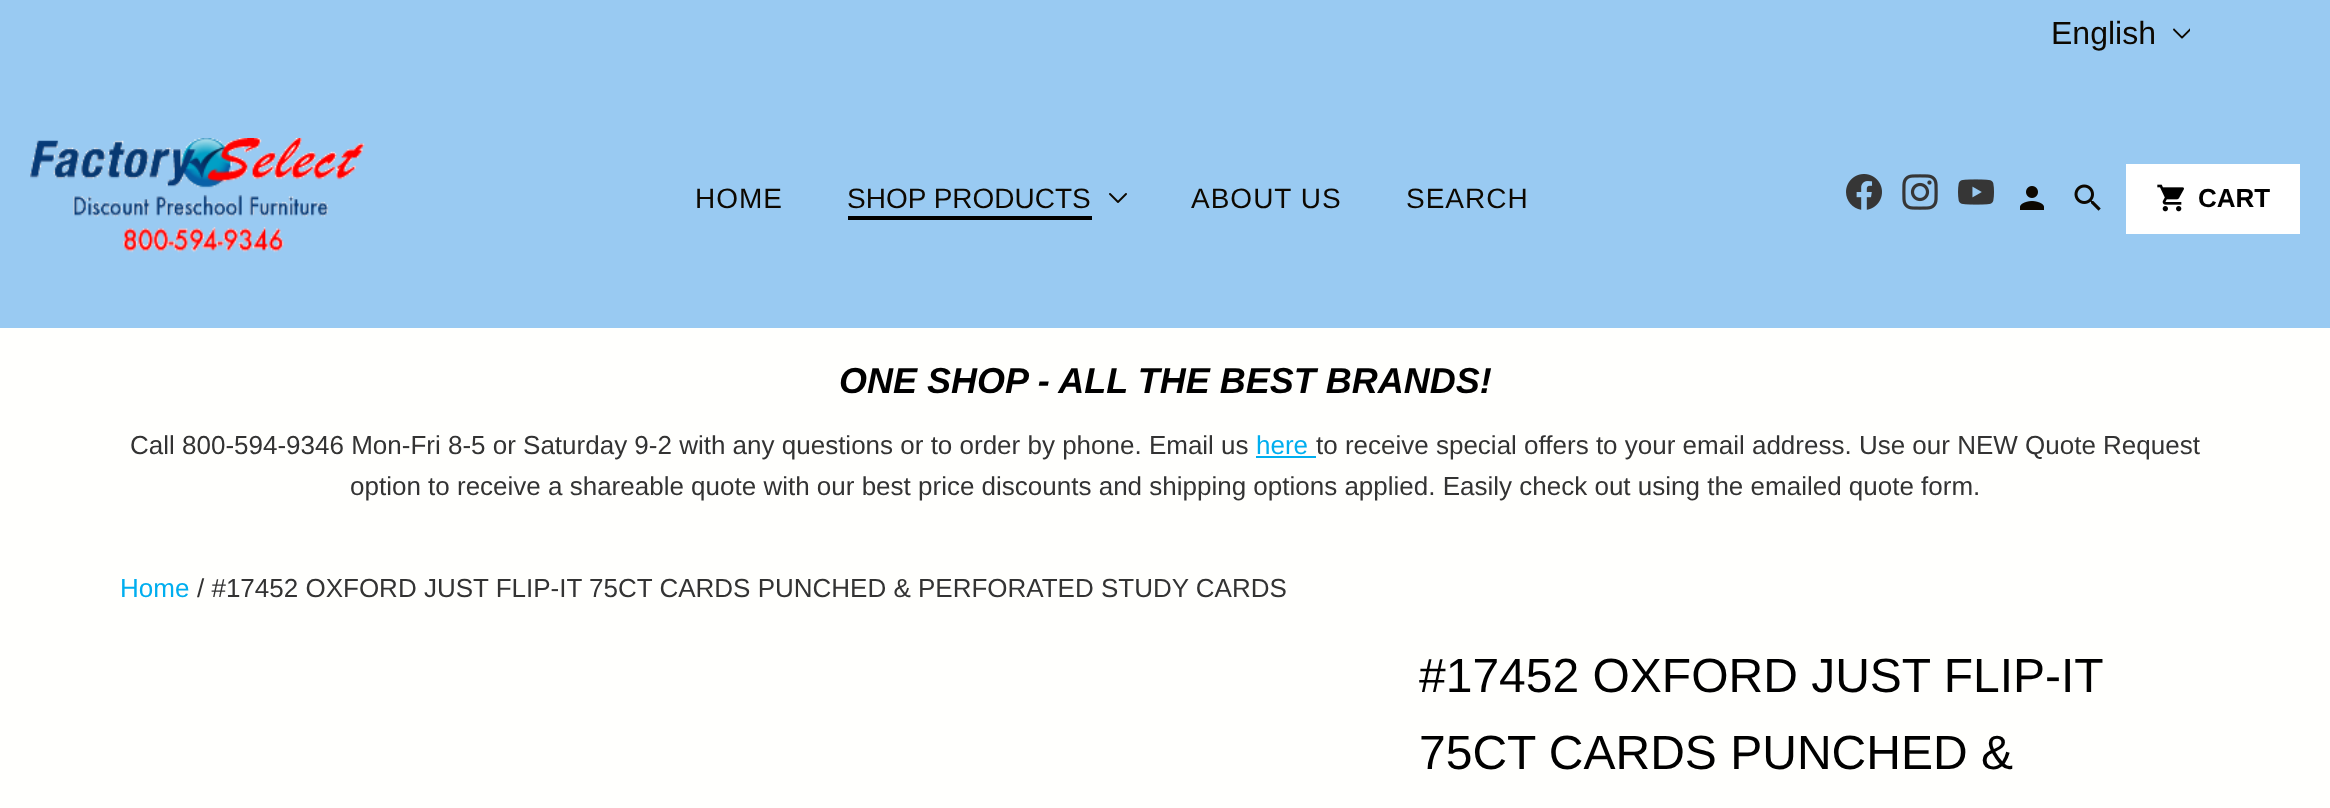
<svg xmlns="http://www.w3.org/2000/svg" width="2330" height="808">
<style>
.a{font:32px Liberation Sans;fill:#0d0800}
.b{font:28px Liberation Sans;letter-spacing:1px;fill:#0d0800}
.c{font:28px Liberation Sans;fill:#0d0800}
.d{font:bold 26px Liberation Sans;fill:#000}
.e{font:italic bold 36px Liberation Sans;fill:#000}
.f{font:26px Liberation Sans;fill:#333}
.g{font:26px Liberation Sans;fill:#00aeef}
.h{font:48px Liberation Sans;fill:#000}
</style>
<rect width="100%" height="100%" fill="#fffffd"/>
<path fill="#99caf2" d="M0 0h2330v328H0z"/>
<image href="1.png" x="2173" y="28" width="17" height="11"/>
<image href="2.png" x="30" y="138" width="335" height="115"/>
<path fill="#000" d="M848 216h244v4H848z"/>
<image href="3.png" x="1109" y="193" width="18" height="10"/>
<image href="4.png" x="1846" y="174" width="36" height="36"/>
<image href="5.png" x="1902" y="174" width="36" height="36"/>
<image href="6.png" x="1958" y="179" width="36" height="26"/>
<image href="7.png" x="2020" y="186" width="24" height="24"/>
<image href="8.png" x="2074" y="184" width="27" height="27"/>
<path fill="#fff" d="M2126 164h174v70H2126z"/>
<image href="9.png" x="2157" y="184" width="27" height="28"/>
<path fill="#00aeef" d="M1256 456h60v2H1256z"/>
<text class="a" x="2051" y="44">English</text>
<text class="b" x="695" y="208">HOME</text>
<text class="c" x="847" y="208">SHOP PRODUCTS</text>
<text class="b" x="1191" y="208">ABOUT US</text>
<text class="b" x="1406" y="208">SEARCH</text>
<text class="d" x="2198" y="207">CART</text>
<text class="e" x="839" y="393">ONE SHOP - ALL THE BEST BRANDS!</text>
<text class="f" x="130" y="454">Call 800-594-9346 Mon-Fri 8-5 or Saturday 9-2 with any questions or to order by phone. Email us</text>
<text class="g" x="1256" y="454">here</text>
<text class="f" x="1316" y="454">to receive special offers to your email address. Use our NEW Quote Request</text>
<text class="f" x="350" y="495">option to receive a shareable quote with our best price discounts and shipping options applied. Easily check out using the emailed quote form.</text>
<text class="g" x="120" y="597">Home</text>
<text class="f" x="197" y="597">/ #17452 OXFORD JUST FLIP-IT 75CT CARDS PUNCHED &amp; PERFORATED STUDY CARDS</text>
<text class="h" x="1419" y="692">#17452 OXFORD JUST FLIP-IT</text>
<text class="h" x="1419" y="769">75CT CARDS PUNCHED &amp;</text>
</svg>
